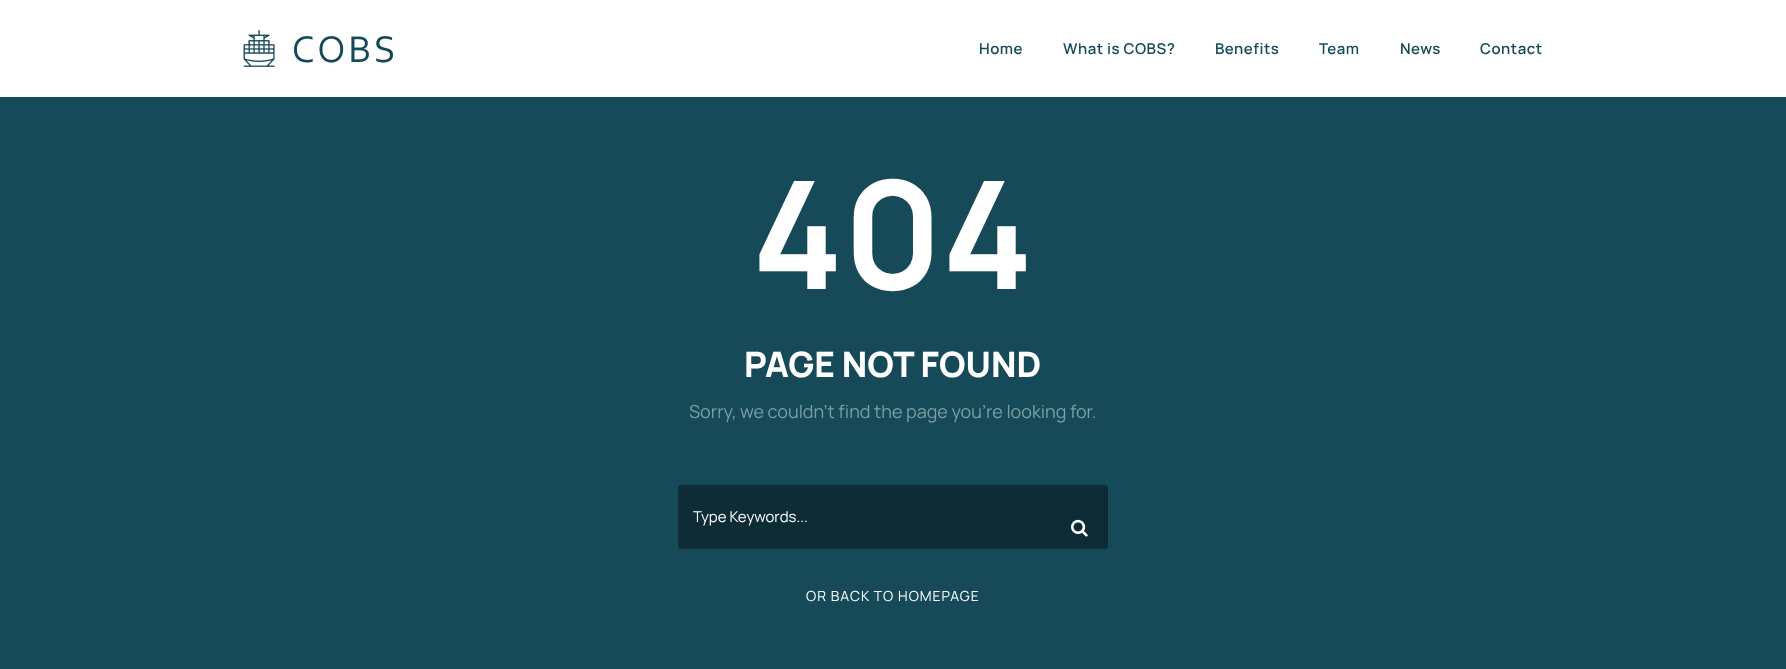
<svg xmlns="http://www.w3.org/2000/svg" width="1786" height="669">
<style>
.a{font:600 15px Manrope;letter-spacing:0.5px;fill:#164a58}
.b{font:bold 150px Manrope;fill:#fff}
.c{font:800 35px Manrope;fill:#fff}
.d{font:18px Manrope;fill:#7a9fa5}
.e{font:15px Manrope;fill:#fff}
.f{font:14px Manrope;letter-spacing:1px;fill:#fff}
</style>
<rect width="100%" height="100%" fill="#fff"/>
<image href="1.png" x="243" y="30" width="150" height="37"/>
<path fill="#164a58" d="M0 97h1786v572H0z"/>
<rect fill="#0d2c35" x="678" y="485" width="430" height="64" rx="3"/>
<image href="2.png" x="1071" y="519" width="17" height="18"/>
<text class="a" x="979" y="54">Home</text>
<text class="a" x="1063" y="54">What is COBS?</text>
<text class="a" x="1215" y="54">Benefits</text>
<text class="a" x="1319" y="54">Team</text>
<text class="a" x="1400" y="54">News</text>
<text class="a" x="1480" y="54">Contact</text>
<text class="b" x="752" y="289">404</text>
<text class="c" x="744" y="377">PAGE NOT FOUND</text>
<text class="d" x="689" y="418">Sorry, we couldn't find the page you're looking for.</text>
<text class="e" x="693" y="522">Type Keywords...</text>
<text class="f" x="806" y="601">OR BACK TO HOMEPAGE</text>
</svg>
